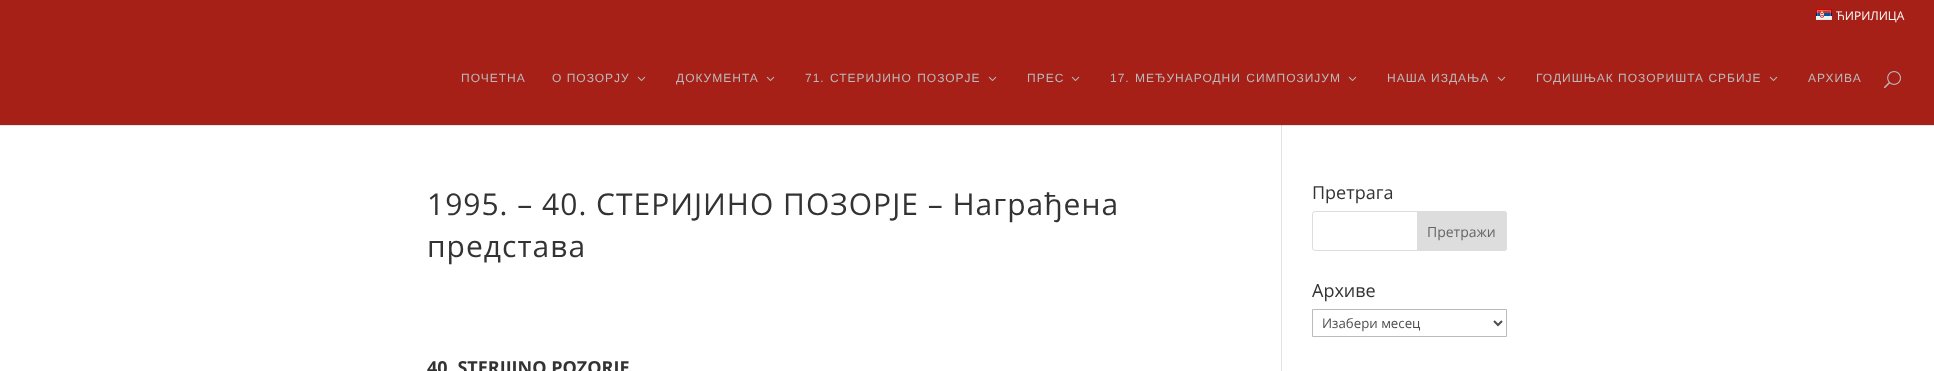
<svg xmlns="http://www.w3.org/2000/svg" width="1934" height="371">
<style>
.a{font:12px Open Sans;fill:#fff}
.b{font:12px Liberation Sans;letter-spacing:1px;fill:#bababa}
.c{font:30px Open Sans;letter-spacing:1px;fill:#333}
.d{font:bold 18px Open Sans;fill:#333}
.e{font:18px Open Sans;fill:#333}
.f{font:14px Open Sans;fill:#666}
.g{font:13.25px Open Sans;fill:#4e4e4e}
</style>
<rect width="100%" height="100%" fill="#fff"/>
<path fill="#a72018" d="M0 0h1934v125H0z"/>
<image href="1.png" x="1816" y="9" width="16" height="11"/>
<image href="2.png" x="637" y="76" width="9" height="5"/>
<image href="2.png" x="766" y="76" width="9" height="5"/>
<image href="2.png" x="988" y="76" width="9" height="5"/>
<image href="2.png" x="1071" y="76" width="9" height="5"/>
<image href="2.png" x="1348" y="76" width="9" height="5"/>
<image href="2.png" x="1497" y="76" width="9" height="5"/>
<image href="2.png" x="1769" y="76" width="9" height="5"/>
<image href="3.png" x="1884" y="71" width="17" height="18"/>
<path fill="#e6e6e6" d="M0 125h1934v1H0z"/>
<path fill="#e2e2e2" d="M1281 125h1v246H1281z"/>
<path fill="#cbcbcb" d="M1281 125h1v1H1281z"/>
<rect fill="none" stroke="#ddd" x="1312.5" y="211.5" width="194" height="39" rx="2.5"/>
<path fill="#ddd" stroke="#ddd" d="M1417.5 211.5h86.5c1.5 0 2.5 1 2.5 2.5v34c0 1.5-1 2.5-2.5 2.5h-86.5z"/>
<path fill="none" stroke="#bbb" d="M1312.5 309.5h194v27H1312.5z"/>
<path fill="none" stroke="#4e4e4e" stroke-width="2" d="M1494 321l4 4l4-4"/>
<text class="a" x="1836" y="20">ЋИРИЛИЦА</text>
<text class="b" x="461" y="82">ПОЧЕТНА</text>
<text class="b" x="552" y="82">О ПОЗОРЈУ</text>
<text class="b" x="676" y="82">ДОКУМЕНТА</text>
<text class="b" x="805" y="82" word-spacing="1">71. СТЕРИЈИНО ПОЗОРЈЕ</text>
<text class="b" x="1027" y="82">ПРЕС</text>
<text class="b" x="1110" y="82" word-spacing="1">17. MЕЂУНАРОДНИ СИМПОЗИЈУМ</text>
<text class="b" x="1387" y="82">НАША ИЗДАЊА</text>
<text class="b" x="1536" y="82">ГОДИШЊАК ПОЗОРИШТА СРБИЈЕ</text>
<text class="b" x="1808" y="82">АРХИВА</text>
<text class="c" x="427" y="215">1995. – 40. СТЕРИЈИНО ПОЗОРЈЕ – Награђена</text>
<text class="c" x="427" y="257">представа</text>
<text class="d" x="427" y="374">40. STERIJINO POZORJE</text>
<text class="e" x="1312" y="199">Претрага</text>
<text class="f" x="1427" y="237">Претражи</text>
<text class="e" x="1312" y="297">Архиве</text>
<text class="g" x="1322" y="328">Изабери месец</text>
</svg>
